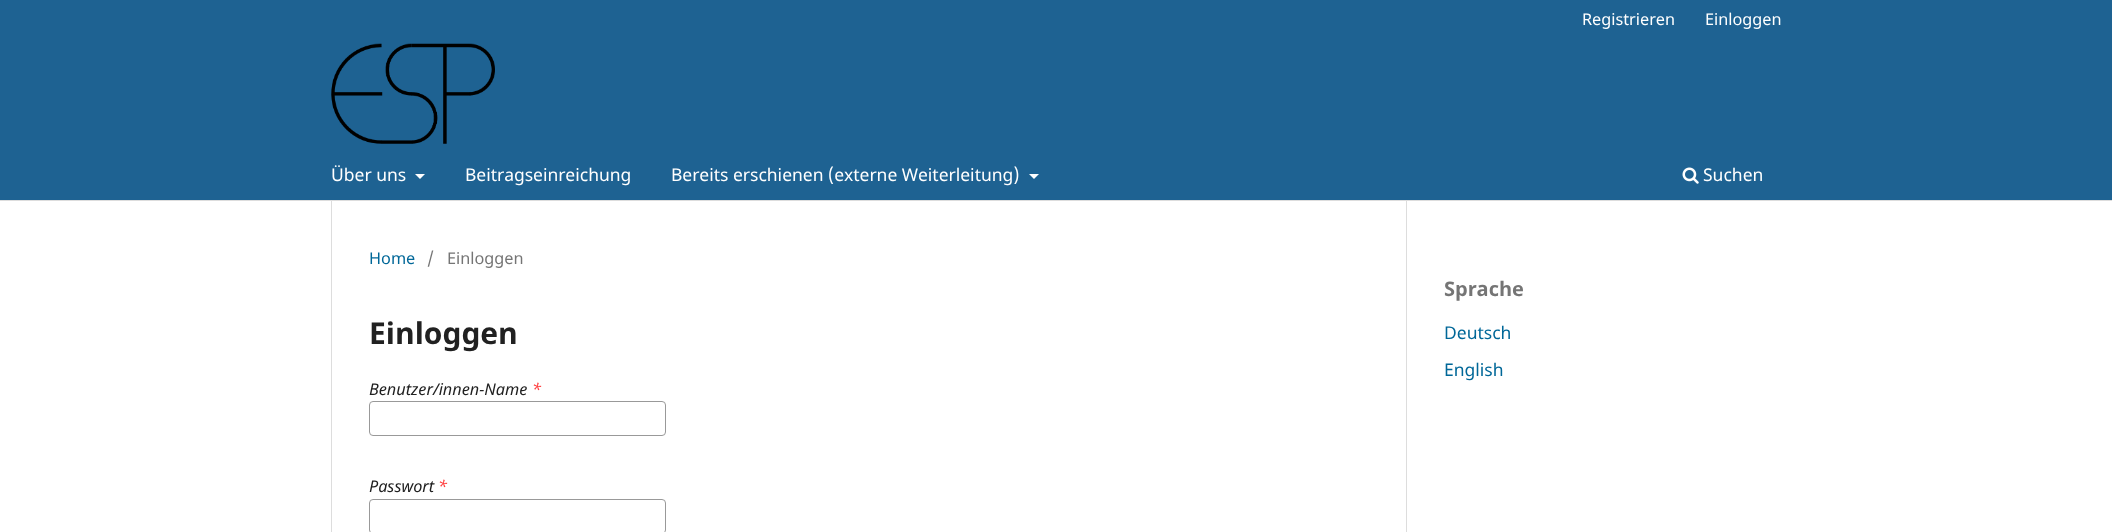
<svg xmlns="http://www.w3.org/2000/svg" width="2112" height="532">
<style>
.a{font:16.25px Noto Sans;fill:#fff}
.b{font:17.5px Noto Sans;fill:#fff}
.c{font:16.25px Noto Sans;fill:#006798}
.d{font:16.25px Noto Sans;fill:#757575}
.e{font:bold 30px Noto Sans;fill:#212121}
.f{font:italic 16.25px Noto Sans;fill:#212121}
.g{font:italic 16.25px Noto Sans;fill:#ff4040}
.h{font:bold 20px Noto Sans;fill:#757575}
.i{font:17.5px Noto Sans;fill:#006798}
</style>
<rect width="100%" height="100%" fill="#fff"/>
<path fill="#1e6292" d="M0 0h2112v200H0z"/>
<path fill="#ddd" d="M0 200h2112v1H0z"/>
<path fill="#fff" d="M415 174h10l-5 5z"/>
<path fill="#fff" d="M1029 174h10l-5 5z"/>
<image href="1.png" x="1682" y="167" width="17" height="17"/>
<image href="2.png" x="331" y="43" width="164" height="101"/>
<path fill="#ddd" d="M331 201h1v331H331z"/>
<rect fill="none" stroke="#999" x="369.5" y="401.5" width="296" height="34" rx="3.5"/>
<rect fill="none" stroke="#999" x="369.5" y="499.5" width="296" height="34" rx="3.5"/>
<path fill="#ddd" d="M1406 201h1v331H1406z"/>
<text class="a" x="1582" y="25">Registrieren</text>
<text class="a" x="1705" y="25">Einloggen</text>
<text class="b" x="331" y="181">Über uns</text>
<text class="b" x="465" y="181">Beitragseinreichung</text>
<text class="b" x="671" y="181">Bereits erschienen (externe Weiterleitung)</text>
<text class="b" x="1703" y="181">Suchen</text>
<text class="c" x="369" y="264">Home</text>
<text class="d" x="427" y="264">/</text>
<text class="d" x="447" y="264">Einloggen</text>
<text class="e" x="369" y="344">Einloggen</text>
<text class="f" x="369" y="395">Benutzer/innen-Name</text>
<text class="g" x="532" y="395">*</text>
<text class="f" x="369" y="492">Passwort</text>
<text class="g" x="438" y="492">*</text>
<text class="h" x="1444" y="296">Sprache</text>
<text class="i" x="1444" y="339">Deutsch</text>
<text class="i" x="1444" y="376">English</text>
</svg>
